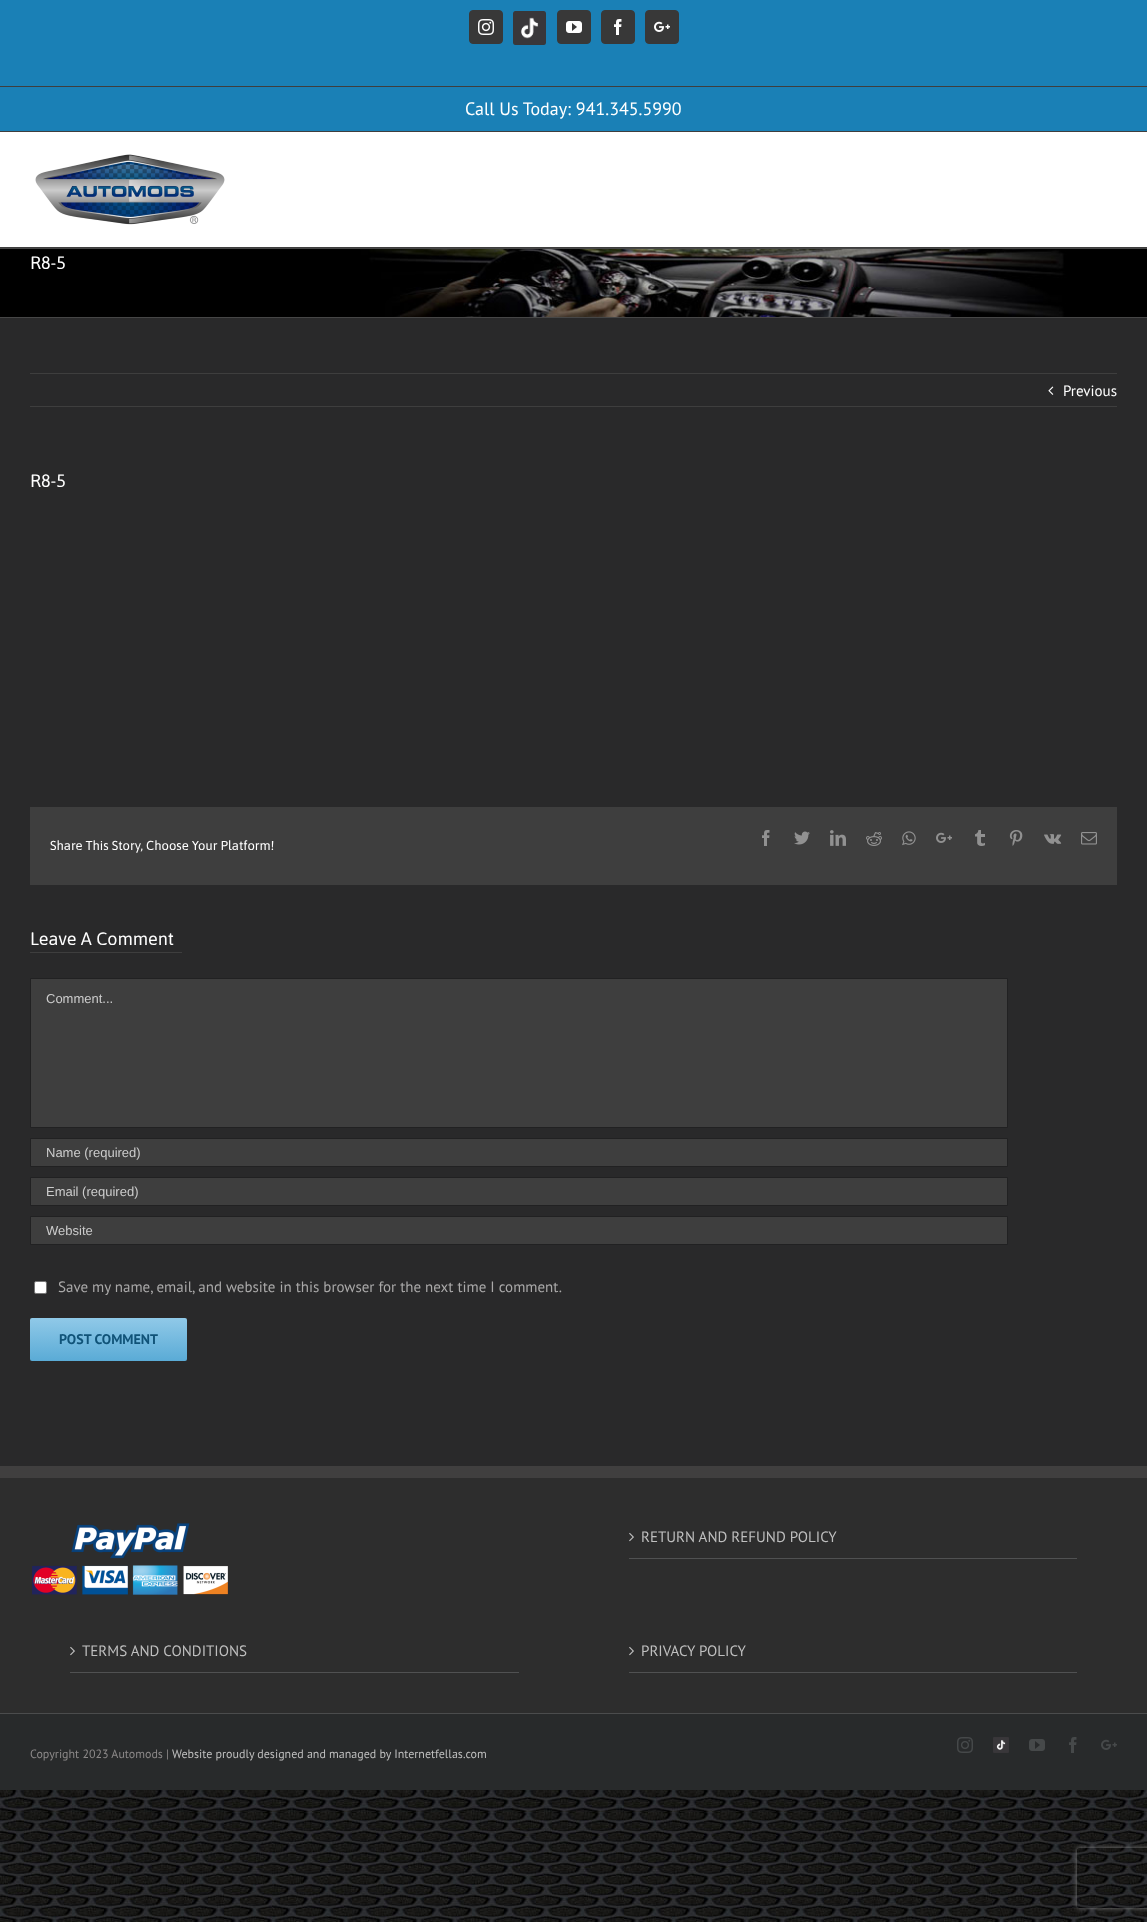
<svg xmlns="http://www.w3.org/2000/svg" width="1147" height="1922">
<style>
.a{font:18px PT Sans;fill:#fff}
.b{font:18px Asap;fill:#fff}
.c{font:15px PT Sans;fill:#fff}
.d{font:13px Asap;fill:#fff}
.e{font:13px Liberation Sans;fill:#ccc}
.f{font:15px PT Sans;fill:#aaa9a9}
.g{font:bold 14px PT Sans;fill:#105378}
.h{font:15px PT Sans;fill:#bfbfbf}
.i{font:12px PT Sans;fill:#8c8989}
.j{font:12px PT Sans;fill:#bfbfbf}
</style>
<defs>
<linearGradient id="g1" gradientUnits="userSpaceOnUse" x1="109" y1="1361" x2="109" y2="1318"><stop offset="0" stop-color="#5aabd6"/><stop offset="1" stop-color="#90c9e8"/></linearGradient>
<clipPath id="clip1"><path d="M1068 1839h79v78h-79zm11 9h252c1 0 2 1 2 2v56c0 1-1 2-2 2h-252c-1 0-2-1-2-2v-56c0-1 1-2 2-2z" clip-rule="evenodd"/></clipPath>
</defs>
<rect width="100%" height="100%" fill="#fff"/>
<path fill="#1a80b6" d="M0 0h1147v131H0z"/>
<path fill="#3e3e3e" d="M0 131h1147v1H0z"/>
<path fill="#3e3e3e" d="M0 86h1147v1H0z"/>
<rect fill="#383838" stroke="#383838" x="469.5" y="10.5" width="33" height="33" rx="3.5"/>
<image href="1.png" x="478" y="19" width="16" height="16"/>
<image href="2.png" x="513" y="11" width="33" height="34"/>
<rect fill="#383838" stroke="#383838" x="557.5" y="10.5" width="33" height="33" rx="3.5"/>
<image href="3.png" x="566" y="21" width="16" height="12"/>
<rect fill="#383838" stroke="#383838" x="601.5" y="10.5" width="33" height="33" rx="3.5"/>
<image href="4.png" x="614" y="19" width="8" height="16"/>
<rect fill="#383838" stroke="#383838" x="645.5" y="10.5" width="33" height="33" rx="3.5"/>
<image href="5.png" x="654" y="21" width="16" height="11"/>
<path fill="#3e3e3e" d="M0 247h1147v1H0z"/>
<image href="6.png" x="35" y="154" width="190" height="71"/>
<image href="7.png" x="0" y="249" width="1147" height="68"/>
<path fill="#464646" d="M0 248h1147v1H0z"/>
<path fill="#464646" d="M0 317h1147v1H0z"/>
<path fill="#29292a" d="M0 318h1147v1148H0z"/>
<path fill="#3e3e3e" d="M30 373h1087v1H30z"/>
<path fill="#3e3e3e" d="M30 406h1087v1H30z"/>
<image href="8.png" x="1048" y="386" width="6" height="9"/>
<path fill="#3e3e3e" d="M30 807h1087v78H30z"/>
<image href="9.png" x="762" y="830" width="8" height="16"/>
<image href="10.png" x="794" y="831" width="16" height="14"/>
<image href="11.png" x="830" y="830" width="16" height="16"/>
<image href="12.png" x="866" y="832" width="16" height="14"/>
<image href="13.png" x="902" y="831" width="14" height="15"/>
<image href="14.png" x="936" y="832" width="16" height="11"/>
<image href="15.png" x="975" y="830" width="10" height="16"/>
<image href="16.png" x="1009" y="830" width="14" height="16"/>
<image href="17.png" x="1044" y="834" width="18" height="10"/>
<image href="18.png" x="1081" y="832" width="16" height="13"/>
<path fill="#3e3e3e" d="M30 952h152v1H30z"/>
<path fill="#3e3e3e" stroke="#212122" d="M30.5 978.5h977v149H30.5z"/>
<path fill="#3e3e3e" stroke="#212122" d="M30.5 1138.5h977v28H30.5z"/>
<path fill="#3e3e3e" stroke="#212122" d="M30.5 1177.5h977v28H30.5z"/>
<path fill="#3e3e3e" stroke="#212122" d="M30.5 1216.5h977v28H30.5z"/>
<rect fill="#fff" stroke="#767676" x="34.5" y="1281.5" width="12" height="12" rx="1.5"/>
<rect fill="url(#g1)" x="30" y="1318" width="157" height="43" rx="2"/>
<path fill="#2d2d2d" d="M0 1478h1147v235H0z"/>
<path fill="#403f3f" d="M0 1466h1147v12H0z"/>
<image href="19.png" x="32" y="1523" width="196" height="72"/>
<path fill="#505152" d="M629 1558h448v1H629z"/>
<image href="20.png" x="629" y="1532" width="5" height="10"/>
<path fill="#505152" d="M70 1672h449v1H70z"/>
<image href="20.png" x="70" y="1646" width="5" height="10"/>
<path fill="#505152" d="M629 1672h448v1H629z"/>
<image href="20.png" x="629" y="1646" width="5" height="10"/>
<path fill="#282a2b" d="M0 1714h1147v76H0z"/>
<path fill="#4b4c4d" d="M0 1713h1147v1H0z"/>
<image href="21.png" x="957" y="1737" width="16" height="16"/>
<image href="22.png" x="993" y="1737" width="16" height="16"/>
<image href="23.png" x="1029" y="1739" width="16" height="12"/>
<image href="24.png" x="1069" y="1737" width="8" height="16"/>
<image href="25.png" x="1101" y="1739" width="16" height="11"/>
<image href="26.png" x="0" y="1790" width="1147" height="132"/>
<g clip-path="url(#clip1)">
<rect fill="#808080" filter="blur(2.5px)" x="1077" y="1848" width="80" height="60" rx="2"/>
</g>
<text class="a" x="465" y="115">Call Us Today: 941.345.5990</text>
<text class="b" x="30" y="269">R8-5</text>
<text class="c" x="1063" y="396">Previous</text>
<text class="b" x="30" y="487">R8-5</text>
<text class="d" x="50" y="850">Share This Story, Choose Your Platform!</text>
<text class="b" x="30" y="945">Leave A Comment</text>
<text class="e" x="46" y="1003">Comment...</text>
<text class="e" x="46" y="1157">Name (required)</text>
<text class="e" x="46" y="1196">Email (required)</text>
<text class="e" x="46" y="1235">Website</text>
<text class="f" x="58" y="1292">Save my name, email, and website in this browser for the next time I comment.</text>
<text class="g" x="59" y="1344">POST COMMENT</text>
<text class="h" x="641" y="1542">RETURN AND REFUND POLICY</text>
<text class="h" x="82" y="1656">TERMS AND CONDITIONS</text>
<text class="h" x="641" y="1656">PRIVACY POLICY</text>
<text class="i" x="30" y="1758">Copyright 2023 Automods |</text>
<text class="j" x="172" y="1758">Website proudly designed and managed by Internetfellas.com</text>
</svg>
